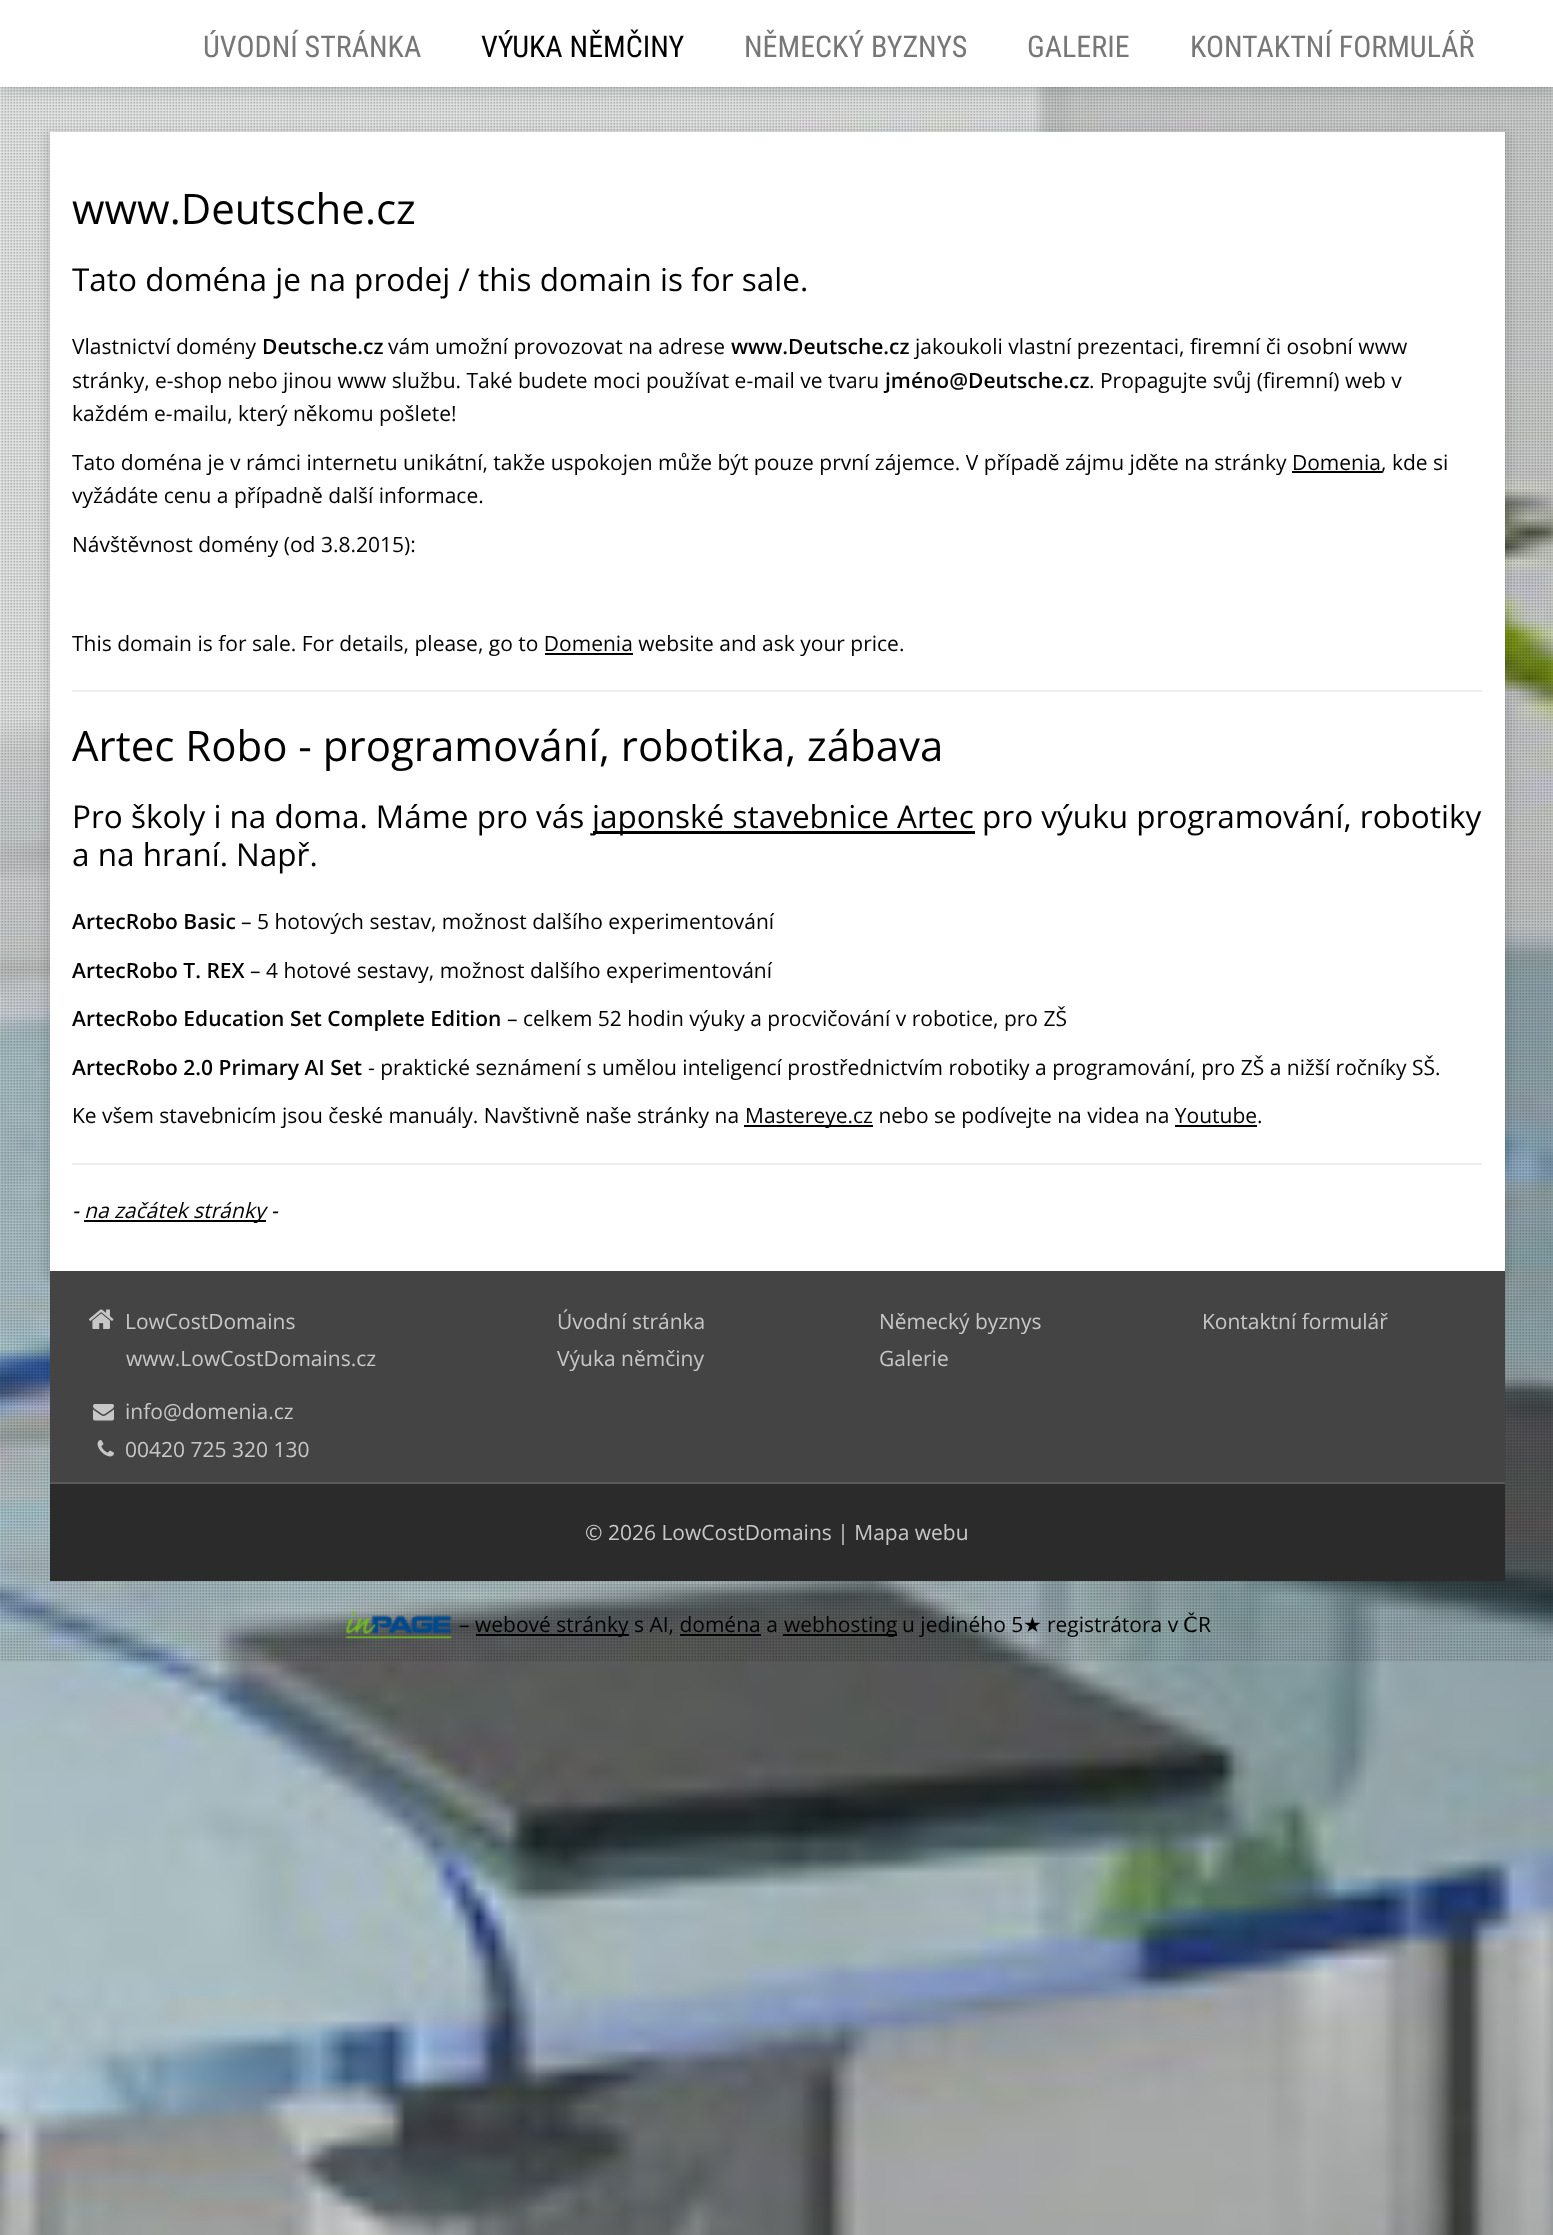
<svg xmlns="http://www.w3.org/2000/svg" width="1553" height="2235">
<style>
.a{font:30px Roboto Condensed;fill:#777}
.b{font:30px Roboto Condensed;fill:#000}
.c{font:42px Open Sans;fill:#000}
.d{font:31.5px Open Sans;fill:#000}
.e{font:21px Open Sans;fill:#000}
.f{font:600 21px Open Sans;fill:#000}
.g{font:italic 21px Open Sans;fill:#000}
.h{font:21px Open Sans;fill:#c7c7c7}
.i{font:21px DejaVu Sans;fill:#000}
</style>
<rect width="100%" height="100%" fill="#fff"/>
<image href="1.png" x="0" y="87" width="1553" height="2148"/>
<image href="2.png" x="0" y="87" width="1553" height="1575"/>
<path fill="#00000033" filter="blur(7.5px)" d="M0 0h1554v87H0z"/>
<path fill="#fff" d="M0 0h1553v87H0z"/>
<path fill="#0000001a" filter="blur(4px)" d="M45 132h1464v1148H45z"/>
<path fill="#fff" d="M50 132h1455v1139H50z"/>
<path fill="#000" d="M1292 471h90v2H1292z"/>
<path fill="#000" d="M545 653h88v2H545z"/>
<path fill="#eee" d="M72 690h1410v2H72z"/>
<path fill="#000" d="M593 831h382v3H593z"/>
<path fill="#000" d="M744 1125h129v2H744z"/>
<path fill="#000" d="M1175 1125h82v2H1175z"/>
<path fill="#eee" d="M72 1163h1410v2H72z"/>
<path fill="#000" d="M84 1220h182v2H84z"/>
<path fill="#444" d="M50 1271h1455v211H50z"/>
<image href="3.png" x="89" y="1309" width="25" height="20"/>
<image href="4.png" x="93" y="1404" width="21" height="17"/>
<image href="5.png" x="97" y="1440" width="17" height="17"/>
<path fill="#2b2b2b" d="M50 1484h1455v97H50z"/>
<path fill="#595959" d="M50 1482h1455v2H50z"/>
<image href="6.png" x="345" y="1610" width="107" height="29"/>
<path fill="#000" d="M476 1634h153v2H476z"/>
<path fill="#000" d="M783 1634h114v2H783z"/>
<path fill="#000" d="M680 1634h81v2H680z"/>
<text class="a" x="203" y="57">ÚVODNÍ STRÁNKA</text>
<text class="b" x="481" y="57">VÝUKA NĚMČINY</text>
<text class="a" x="744" y="57">NĚMECKÝ BYZNYS</text>
<text class="a" x="1027" y="57">GALERIE</text>
<text class="a" x="1190" y="57">KONTAKTNÍ FORMULÁŘ</text>
<text class="c" x="72" y="224">www.Deutsche.cz</text>
<text class="d" x="72" y="291">Tato doména je na prodej / this domain is for sale.</text>
<text class="e" x="72" y="354">Vlastnictví domény</text>
<text class="f" x="262" y="354">Deutsche.cz</text>
<text class="e" x="388" y="354">vám umožní provozovat na adrese</text>
<text class="f" x="731" y="354">www.Deutsche.cz</text>
<text class="e" x="915" y="354">jakoukoli vlastní prezentaci, firemní či osobní www</text>
<text class="e" x="72" y="388">stránky, e-shop nebo jinou www službu. Také budete moci používat e-mail ve tvaru</text>
<text class="f" x="885" y="388">jméno@Deutsche.cz</text>
<text class="e" x="1089" y="388">. Propagujte svůj (firemní) web v</text>
<text class="e" x="72" y="421">každém e-mailu, který někomu pošlete!</text>
<text class="e" x="72" y="470">Tato doména je v rámci internetu unikátní, takže uspokojen může být pouze první zájemce. V případě zájmu jděte na stránky Domenia</text>
<text class="e" x="1381" y="470">, kde si</text>
<text class="e" x="72" y="503">vyžádáte cenu a případně další informace.</text>
<text class="e" x="72" y="552">Návštěvnost domény (od 3.8.2015):</text>
<text class="e" x="72" y="651">This domain is for sale. For details, please, go to Domenia website and ask your price.</text>
<text class="c" x="72" y="761">Artec Robo - programování, robotika, zábava</text>
<text class="d" x="72" y="828">Pro školy i na doma. Máme pro vás</text>
<text class="d" x="592" y="828">japonské stavebnice Artec pro výuku programování, robotiky</text>
<text class="d" x="72" y="866">a na hraní. Např.</text>
<text class="f" x="72" y="929">ArtecRobo Basic</text>
<text class="e" x="241" y="929">– 5 hotových sestav, možnost dalšího experimentování</text>
<text class="f" x="72" y="978">ArtecRobo T. REX</text>
<text class="e" x="250" y="978">– 4 hotové sestavy, možnost dalšího experimentování</text>
<text class="f" x="72" y="1026">ArtecRobo Education Set Complete Edition</text>
<text class="e" x="507" y="1026">– celkem 52 hodin výuky a procvičování v robotice, pro ZŠ</text>
<text class="f" x="72" y="1075">ArtecRobo 2.0 Primary AI Set</text>
<text class="e" x="368" y="1075">- praktické seznámení s umělou inteligencí prostřednictvím robotiky a programování, pro ZŠ a nižší ročníky SŠ.</text>
<text class="e" x="72" y="1123">Ke všem stavebnicím jsou české manuály. Navštivně naše stránky na</text>
<text class="e" x="745" y="1123">Mastereye.cz nebo se podívejte na videa na Youtube.</text>
<text class="g" x="72" y="1218">-</text>
<text class="g" x="84" y="1218">na začátek stránky -</text>
<text class="h" x="125" y="1329">LowCostDomains</text>
<text class="h" x="126" y="1366">www.LowCostDomains.cz</text>
<text class="h" x="125" y="1419">info@domenia.cz</text>
<text class="h" x="125" y="1457">00420 725 320 130</text>
<text class="h" x="557" y="1329">Úvodní stránka</text>
<text class="h" x="879" y="1329">Německý byznys</text>
<text class="h" x="1202" y="1329">Kontaktní formulář</text>
<text class="h" x="557" y="1366">Výuka němčiny</text>
<text class="h" x="879" y="1366">Galerie</text>
<text class="h" x="585" y="1540">© 2026 LowCostDomains | Mapa webu</text>
<text class="e" x="459" y="1632">–</text>
<text class="e" x="475" y="1632">webové stránky s AI, doména a</text>
<text class="e" x="784" y="1632">webhosting</text>
<text class="e" x="902" y="1632">u jediného 5</text>
<text class="i" x="1023" y="1632">★</text>
<text class="e" x="1047" y="1632">registrátora v</text>
<text class="i" x="1183" y="1632">Č</text>
<text class="e" x="1198" y="1632">R</text>
</svg>
